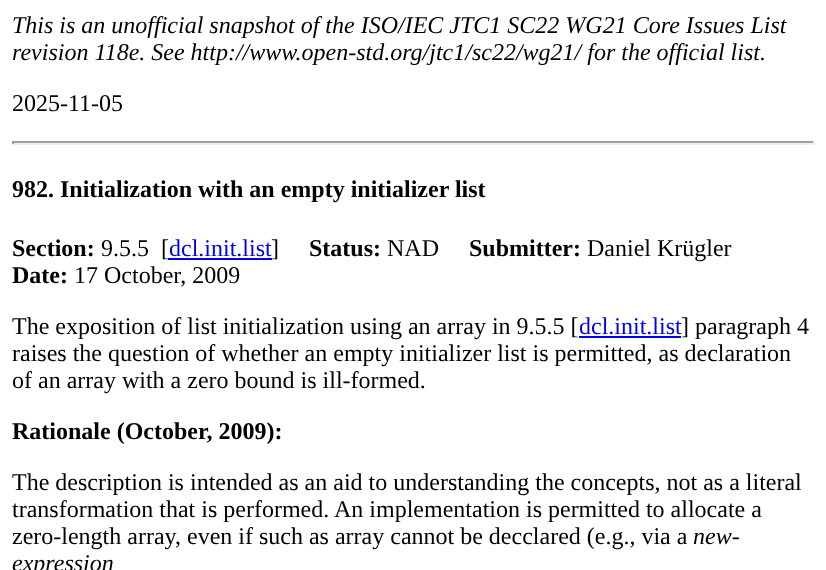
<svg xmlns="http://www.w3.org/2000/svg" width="826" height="570">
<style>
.a{font:italic 24px Liberation Serif;fill:#000}
.b{font:24px Liberation Serif;fill:#000}
.c{font:bold 24px Liberation Serif;fill:#000}
.d{font:24px Liberation Serif;fill:#00e}
</style>
<rect width="100%" height="100%" fill="#fff"/>
<path fill="#9f9f9f" d="M12 141h803v2H12z"/>
<path fill="#eee" d="M813 141h2v3H813z"/>
<path fill="#eee" d="M12 143h803v2H12z"/>
<path fill="#9f9f9f" d="M12 141h2v3H12z"/>
<path fill="#00e" d="M168 258h104v2H168z"/>
<path fill="#00e" d="M579 336h102v2H579z"/>
<text class="a" x="12" y="33">This is an unofficial snapshot of the ISO/IEC JTC1 SC22 WG21 Core Issues List</text>
<text class="a" x="12" y="60">revision 118e. See http://www.open-std.org/jtc1/sc22/wg21/ for the official list.</text>
<text class="b" x="12" y="111">2025-11-05</text>
<text class="c" x="12" y="197">982. Initialization with an empty initializer list</text>
<text class="c" x="12" y="256">Section:</text>
<text class="b" xml:space="preserve" x="101" y="256">9.5.5  [</text>
<text class="d" x="169" y="256">dcl.init.list</text>
<text class="b" x="271" y="256">]</text>
<text class="c" x="309" y="256">Status:</text>
<text class="b" x="387" y="256">NAD</text>
<text class="c" x="469" y="256">Submitter:</text>
<text class="b" x="587" y="256">Daniel Krügler</text>
<text class="c" x="12" y="283">Date:</text>
<text class="b" x="74" y="283">17 October, 2009</text>
<text class="b" x="12" y="334">The exposition of list initialization using an array in 9.5.5 [</text>
<text class="d" x="579" y="334">dcl.init.list</text>
<text class="b" x="681" y="334">] paragraph 4</text>
<text class="b" x="12" y="361">raises the question of whether an empty initializer list is permitted, as declaration</text>
<text class="b" x="12" y="388">of an array with a zero bound is ill-formed.</text>
<text class="c" x="12" y="439">Rationale (October, 2009):</text>
<text class="b" x="12" y="490">The description is intended as an aid to understanding the concepts, not as a literal</text>
<text class="b" x="12" y="517">transformation that is performed.</text>
<text class="b" x="334" y="517">An implementation is permitted to allocate a</text>
<text class="b" x="12" y="544">zero-length array, even if such as array cannot be decclared (e.g., via a</text>
<text class="a" x="693" y="544">new-</text>
<text class="a" x="12" y="571">expression</text>
</svg>
